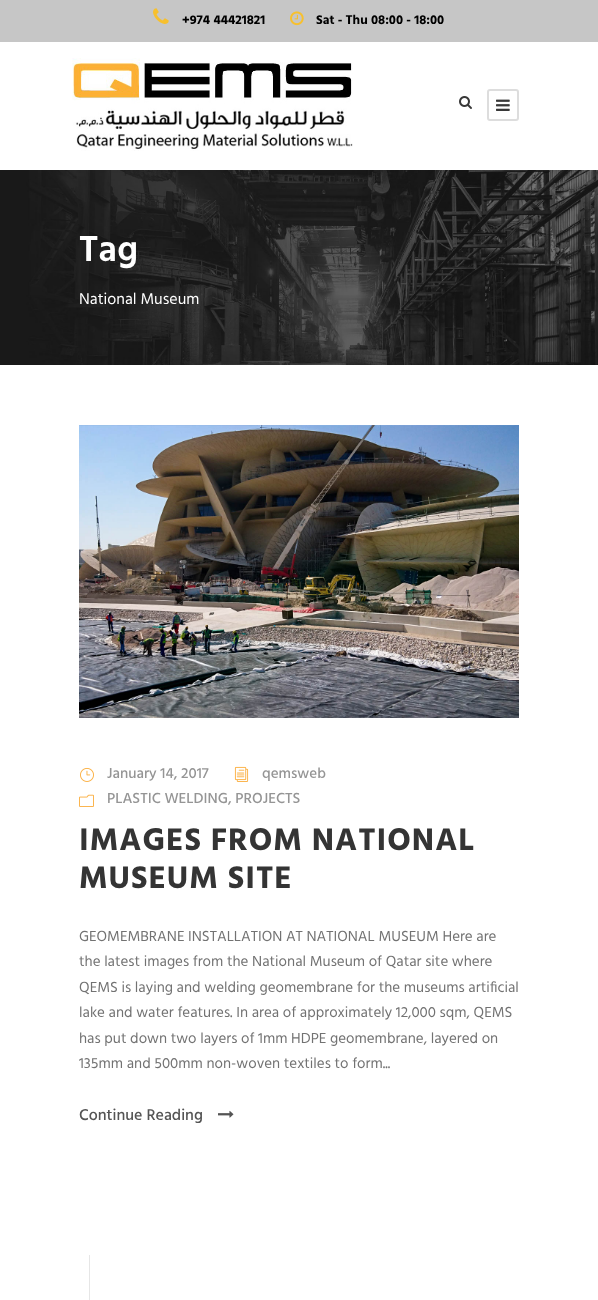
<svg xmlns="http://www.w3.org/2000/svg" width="598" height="1300">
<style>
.a{font:bold 13px Hind;fill:#000}
.b{font:600 37px Hind;fill:#fff}
.c{font:16px Hind;fill:#fff}
.d{font:500 15px Hind;fill:#959595}
.e{font:bold 32px Hind;letter-spacing:1px;fill:#343434}
.f{font:15px Hind;fill:#727272}
.g{font:500 16px Hind;fill:#545454}
</style>
<rect width="100%" height="100%" fill="#fff"/>
<path fill="#c6c6c6" d="M0 0h598v42H0z"/>
<image href="1.png" x="153" y="8" width="16" height="16"/>
<image href="2.png" x="290" y="11" width="14" height="15"/>
<image href="3.png" x="72" y="58" width="281" height="93"/>
<image href="4.png" x="459" y="96" width="13" height="13"/>
<rect fill="none" stroke="#ddd" stroke-width="2" x="488" y="90" width="30" height="30" rx="2"/>
<image href="5.png" x="496" y="99" width="14" height="12"/>
<image href="6.png" x="0" y="170" width="598" height="195"/>
<image href="7.png" x="79" y="425" width="440" height="293"/>
<image href="8.png" x="80" y="767" width="14" height="15"/>
<image href="9.png" x="234" y="766" width="15" height="16"/>
<image href="10.png" x="79" y="794" width="15" height="13"/>
<image href="11.png" x="218" y="1110" width="16" height="8"/>
<path fill="#e6e6e6" d="M89 1255h1v45H89z"/>
<text class="a" x="182" y="24">+974 44421821</text>
<text class="a" x="316" y="24">Sat - Thu 08:00 - 18:00</text>
<text class="b" x="79" y="261">Tag</text>
<text class="c" x="79" y="304">National Museum</text>
<text class="d" x="107" y="778">January 14, 2017</text>
<text class="d" x="262" y="778">qemsweb</text>
<text class="d" x="107" y="803">PLASTIC WELDING, PROJECTS</text>
<text class="e" x="79" y="850">IMAGES FROM NATIONAL</text>
<text class="e" x="79" y="888">MUSEUM SITE</text>
<text class="f" x="79" y="941">GEOMEMBRANE INSTALLATION AT NATIONAL MUSEUM Here are</text>
<text class="f" x="79" y="966">the latest images from the National Museum of Qatar site where</text>
<text class="f" x="79" y="992">QEMS is laying and welding geomembrane for the museums artificial</text>
<text class="f" x="79" y="1017">lake and water features. In area of approximately 12,000 sqm, QEMS</text>
<text class="f" x="79" y="1043">has put down two layers of 1mm HDPE geomembrane, layered on</text>
<text class="f" x="79" y="1068">135mm and 500mm non-woven textiles to form...</text>
<text class="g" x="79" y="1120">Continue Reading</text>
</svg>
